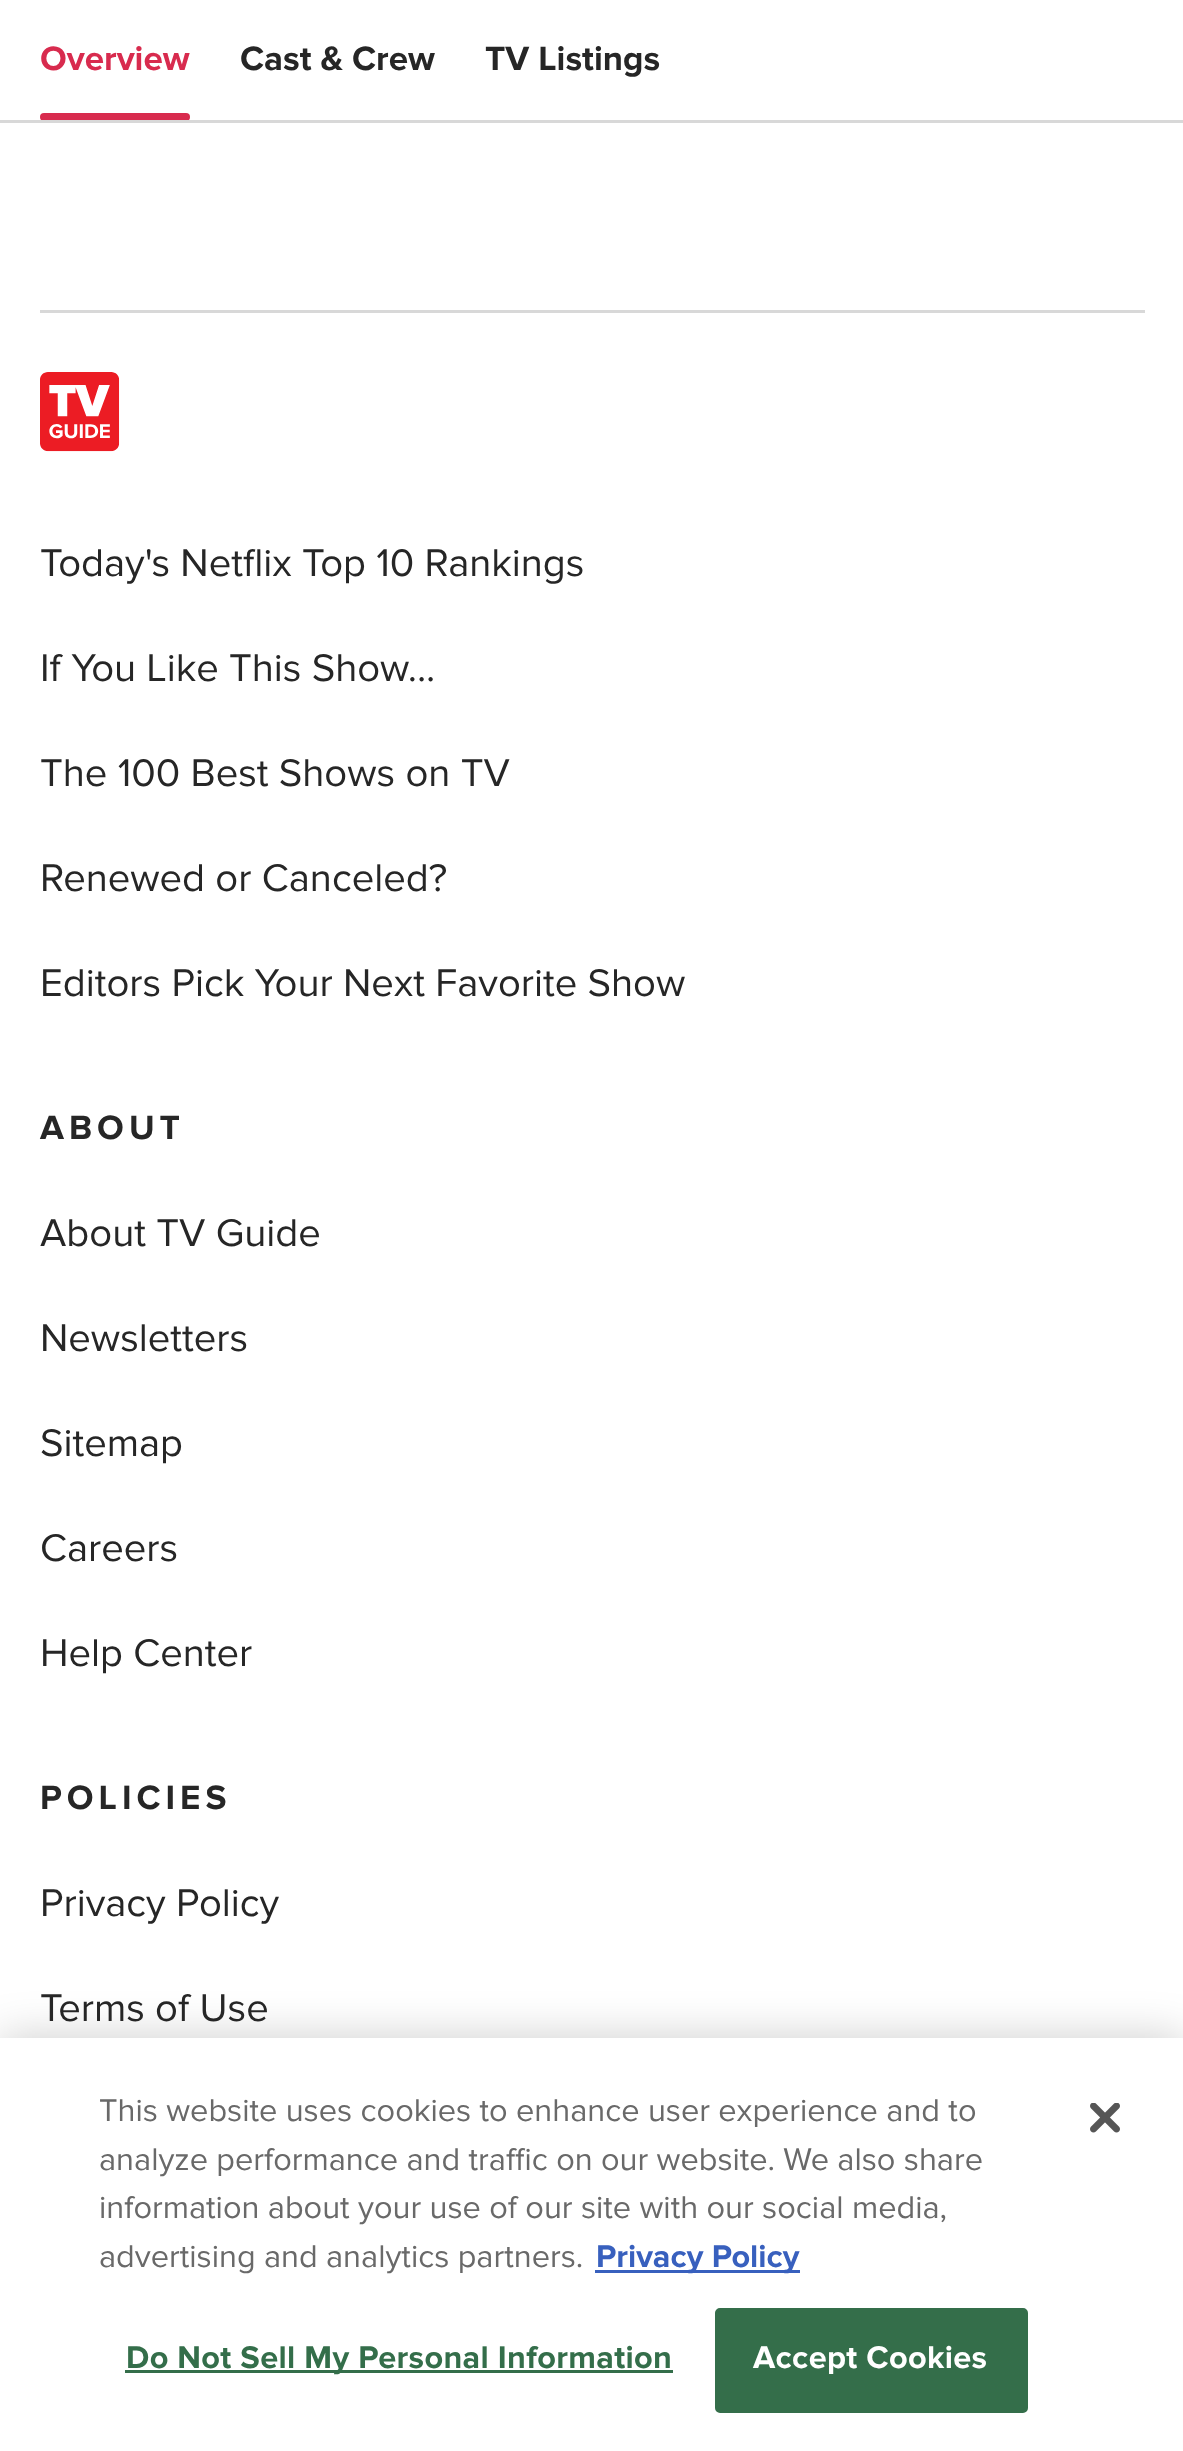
<svg xmlns="http://www.w3.org/2000/svg" width="1183" height="2451">
<style>
.a{font:bold 35px Proxima Nova;fill:#d82b4e}
.b{font:bold 35px Proxima Nova;fill:#262626}
.c{font:40px Proxima Nova;fill:#262626}
.d{font:bold 35px Proxima Nova;letter-spacing:5px;fill:#262626}
.e{font:32.5px Proxima Nova;fill:#696969}
.f{font:bold 32.5px Proxima Nova;fill:#3860be}
.g{font:bold 32.5px Proxima Nova;letter-spacing:0.35px;fill:#346e4a}
.h{font:bold 32.5px Proxima Nova;letter-spacing:0.35px;fill:#fff}
</style>
<defs>
<clipPath id="clip1"><path d="M0 0h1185v120H0z"/></clipPath>
</defs>
<rect width="100%" height="100%" fill="#fff"/>
<path fill="#d8d8d8" d="M0 120h1183v3H0z"/>
<g clip-path="url(#clip1)">
<rect fill="#d82b4e" x="40" y="113" width="150" height="8" rx="4"/>
</g>
<path fill="#d8d8d8" d="M40 310h1105v3H40z"/>
<image href="1.png" x="40" y="372" width="80" height="80"/>
<path fill="#00000033" filter="blur(22.5px)" d="M0 2038h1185v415H0z"/>
<path fill="#fff" d="M0 2038h1183v413H0z"/>
<path fill="#3860be" d="M595 2270h205v3H595z"/>
<path fill="#346e4a" d="M125 2370h548v3H125z"/>
<rect fill="#346e4a" stroke="#346e4a" stroke-width="3" x="716.5" y="2309.5" width="310" height="102" rx="3.5"/>
<image href="2.png" x="1090" y="2103" width="30" height="30"/>
<text class="a" x="40" y="70">Overview</text>
<text class="b" x="240" y="70">Cast &amp; Crew</text>
<text class="b" x="485" y="70">TV Listings</text>
<text class="c" x="40" y="576">Today's Netflix Top 10 Rankings</text>
<text class="c" x="40" y="681">If You Like This Show...</text>
<text class="c" x="40" y="786">The 100 Best Shows on TV</text>
<text class="c" x="40" y="891">Renewed or Canceled?</text>
<text class="c" x="40" y="996">Editors Pick Your Next Favorite Show</text>
<text class="d" x="40" y="1139">ABOUT</text>
<text class="c" x="40" y="1246">About TV Guide</text>
<text class="c" x="40" y="1351">Newsletters</text>
<text class="c" x="40" y="1456">Sitemap</text>
<text class="c" x="40" y="1561">Careers</text>
<text class="c" x="40" y="1666">Help Center</text>
<text class="d" x="40" y="1809">POLICIES</text>
<text class="c" x="40" y="1916">Privacy Policy</text>
<text class="c" x="40" y="2021">Terms of Use</text>
<text class="e" x="99" y="2121">This website uses cookies to enhance user experience and to</text>
<text class="e" x="99" y="2170">analyze performance and traffic on our website. We also share</text>
<text class="e" x="99" y="2218">information about your use of our site with our social media,</text>
<text class="e" x="99" y="2267">advertising and analytics partners.</text>
<text class="f" x="596" y="2267">Privacy Policy</text>
<text class="g" x="126" y="2368">Do Not Sell My Personal Information</text>
<text class="h" x="753" y="2368">Accept Cookies</text>
</svg>
